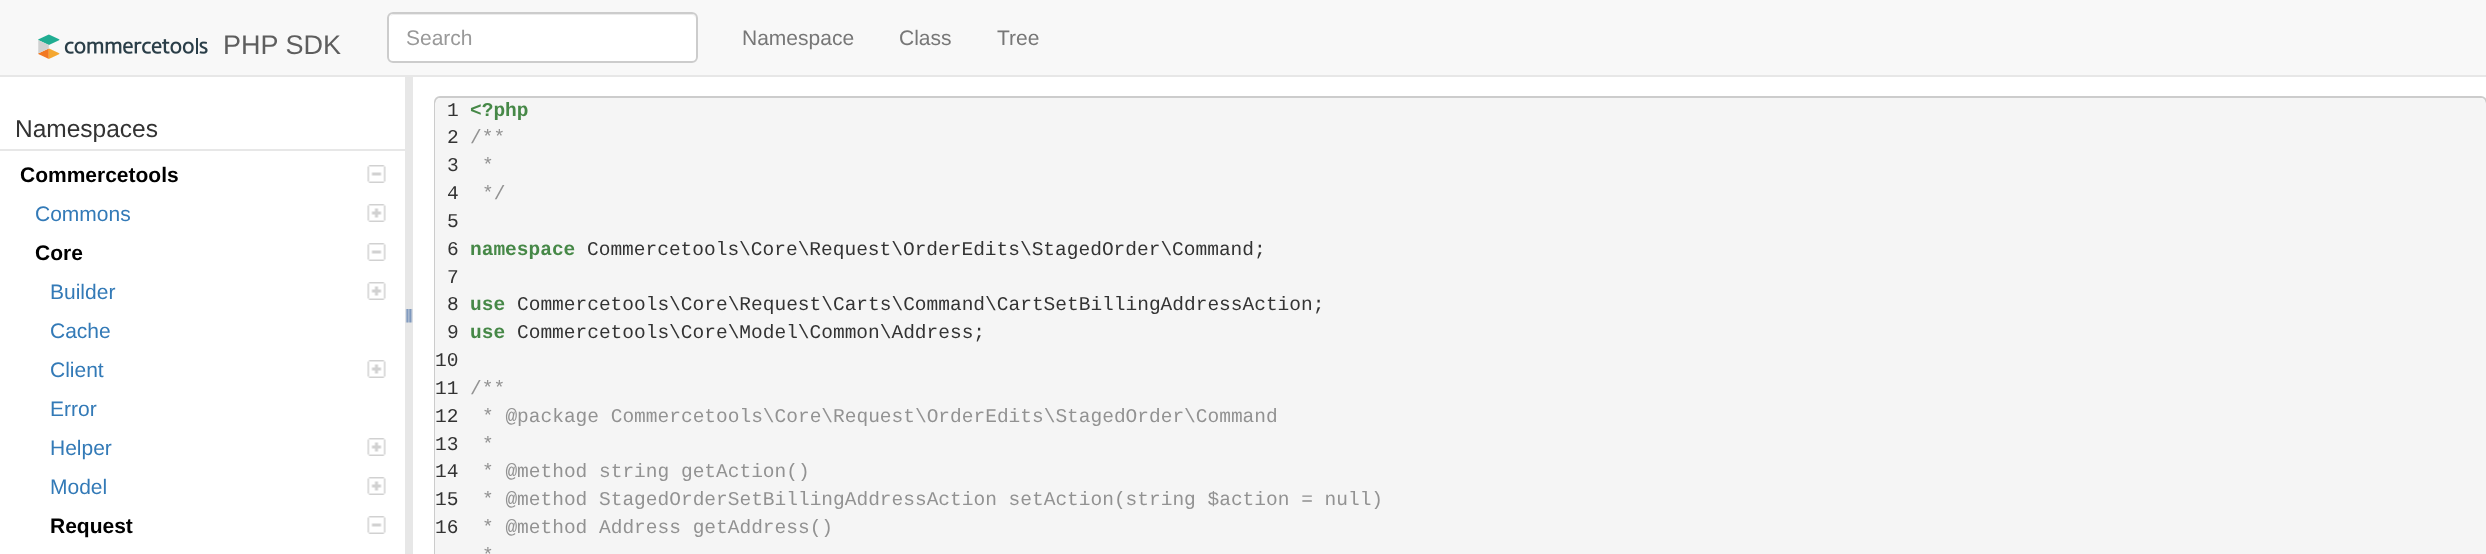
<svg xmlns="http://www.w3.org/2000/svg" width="2486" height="554">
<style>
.a{font:27px Liberation Sans;fill:#5e5e5e}
.b{font:21px Liberation Sans;fill:#999}
.c{font:21px Liberation Sans;fill:#777}
.d{font:24.5px Liberation Sans;fill:#333}
.e{font:bold 21px Liberation Sans;fill:#000}
.f{font:21px Liberation Sans;fill:#337ab7}
.g{font:19.5px Liberation Mono;fill:#333}
.h{font:bold 19.5px Liberation Mono;fill:#468847}
.i{font:19.5px Liberation Mono;fill:#929292}
</style>
<defs>
<clipPath id="clip1"><rect x="435" y="98" width="2051" height="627" rx="5"/></clipPath>
</defs>
<rect width="100%" height="100%" fill="#fff"/>
<path fill="#f8f8f8" d="M0 0h2486v75H0z"/>
<path fill="#e7e7e7" d="M405 75h8v479H405z"/>
<path fill="#e7e7e7" d="M0 75h2486v2H0z"/>
<image href="1.png" x="38" y="34" width="170" height="25"/>
<rect fill="#fff" x="387" y="12" width="311" height="51" rx="6"/>
<path fill="#ececec" d="M393 15h299c2 0 4 2 4 5v-1c0-3-2-5-5-5h-297c-2 0-3 1-4 2z"/>
<rect fill="none" stroke="#ccc" stroke-width="2" x="388" y="13" width="309" height="49" rx="5"/>
<path fill="#e7e7e7" d="M0 149h405v2H0z"/>
<image href="2.png" x="367" y="165" width="19" height="18"/>
<image href="3.png" x="367" y="204" width="19" height="18"/>
<image href="2.png" x="367" y="243" width="19" height="18"/>
<image href="3.png" x="367" y="282" width="19" height="18"/>
<image href="3.png" x="367" y="360" width="19" height="18"/>
<image href="3.png" x="367" y="438" width="19" height="18"/>
<image href="3.png" x="367" y="477" width="19" height="18"/>
<image href="2.png" x="367" y="516" width="19" height="18"/>
<image href="4.png" x="405" y="309" width="8" height="14"/>
<rect fill="none" stroke="#ccc" stroke-width="2" x="435" y="97" width="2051" height="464" rx="5"/>
<g clip-path="url(#clip1)">
<path fill="#f5f5f5" d="M441 98h2039c3.5 0 6 2.5 6 6v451h-2051v-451c0-3.5 2.5-6 6-6z"/>
</g>
<text class="a" x="223" y="54">PHP SDK</text>
<text class="b" x="406" y="45">Search</text>
<text class="c" x="742" y="45">Namespace</text>
<text class="c" x="899" y="45">Class</text>
<text class="c" x="997" y="45">Tree</text>
<text class="d" x="15" y="137">Namespaces</text>
<text class="e" x="20" y="182">Commercetools</text>
<text class="f" x="35" y="221">Commons</text>
<text class="e" x="35" y="260">Core</text>
<text class="f" x="50" y="299">Builder</text>
<text class="f" x="50" y="338">Cache</text>
<text class="f" x="50" y="377">Client</text>
<text class="f" x="50" y="416">Error</text>
<text class="f" x="50" y="455">Helper</text>
<text class="f" x="50" y="494">Model</text>
<text class="e" x="50" y="533">Request</text>
<text class="g" x="447" y="116">1</text>
<text class="g" x="447" y="143">2</text>
<text class="g" x="447" y="171">3</text>
<text class="g" x="447" y="199">4</text>
<text class="g" x="447" y="227">5</text>
<text class="g" x="447" y="255">6</text>
<text class="g" x="447" y="283">7</text>
<text class="g" x="447" y="310">8</text>
<text class="g" x="447" y="338">9</text>
<text class="g" x="435" y="366">10</text>
<text class="g" x="435" y="394">11</text>
<text class="g" x="435" y="422">12</text>
<text class="g" x="435" y="450">13</text>
<text class="g" x="435" y="477">14</text>
<text class="g" x="435" y="505">15</text>
<text class="g" x="435" y="533">16</text>
<text class="h" x="470" y="116">&lt;?php</text>
<text class="i" x="470" y="143">/**</text>
<text class="i" x="482" y="171">*</text>
<text class="i" x="482" y="199">*/</text>
<text class="h" x="470" y="255">namespace</text>
<text class="g" x="587" y="255">Commercetools\Core\Request\OrderEdits\StagedOrder\Command;</text>
<text class="h" x="470" y="310">use</text>
<text class="g" x="517" y="310">Commercetools\Core\Request\Carts\Command\CartSetBillingAddressAction;</text>
<text class="h" x="470" y="338">use</text>
<text class="g" x="517" y="338">Commercetools\Core\Model\Common\Address;</text>
<text class="i" x="470" y="394">/**</text>
<text class="i" x="482" y="422">* @package Commercetools\Core\Request\OrderEdits\StagedOrder\Command</text>
<text class="i" x="482" y="450">*</text>
<text class="i" x="482" y="477">* @method string getAction()</text>
<text class="i" x="482" y="505">* @method StagedOrderSetBillingAddressAction setAction(string $action = null)</text>
<text class="i" x="482" y="533">* @method Address getAddress()</text>
<text class="i" x="482" y="561">*</text>
</svg>
